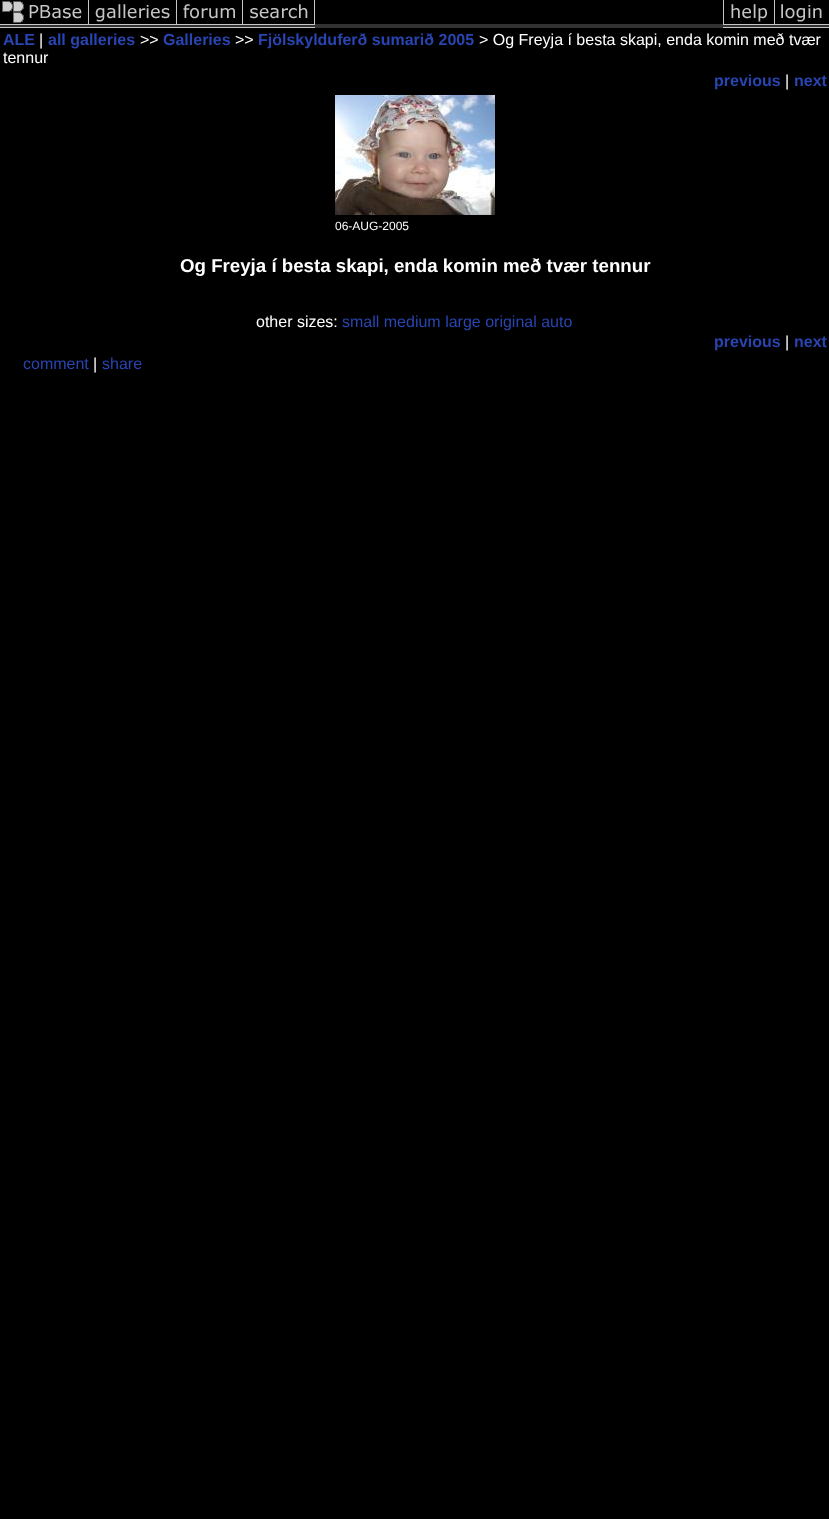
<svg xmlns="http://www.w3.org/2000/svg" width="829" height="1519">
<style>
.a{font:bold 16px Liberation Sans;fill:#2845b1}
.b{font:16px Liberation Sans;fill:#fff}
.c{font:12px Liberation Sans;fill:#fff}
.d{font:bold 18.7px Liberation Sans;fill:#fff}
.e{font:16px Liberation Sans;fill:#2845b1}
</style>
<rect width="100%" height="100%" fill="#000"/>
<image href="1.png" x="0" y="0" width="89" height="28"/>
<image href="2.png" x="89" y="0" width="88" height="28"/>
<image href="3.png" x="177" y="0" width="66" height="28"/>
<image href="4.png" x="243" y="0" width="72" height="28"/>
<path fill="#323232" d="M315 24h408v4H315z"/>
<image href="5.png" x="723" y="0" width="52" height="28"/>
<image href="6.png" x="775" y="4" width="54" height="24"/>
<image href="7.png" x="335" y="95" width="160" height="120"/>
<text class="a" x="3" y="45">ALE</text>
<text class="b" x="39" y="45">|</text>
<text class="a" x="48" y="45">all galleries</text>
<text class="b" x="140" y="45">&gt;&gt;</text>
<text class="a" x="163" y="45">Galleries</text>
<text class="b" x="235" y="45">&gt;&gt;</text>
<text class="a" x="258" y="45">Fjölskylduferð sumarið 2005</text>
<text class="b" x="479" y="45">&gt; Og Freyja í besta skapi, enda komin með tvær</text>
<text class="b" x="3" y="63">tennur</text>
<text class="a" x="714" y="86">previous</text>
<text class="b" x="785" y="86">|</text>
<text class="a" x="794" y="86">next</text>
<text class="c" x="335" y="230">06-AUG-2005</text>
<text class="d" x="180" y="272">Og Freyja í besta skapi, enda komin með tvær tennur</text>
<text class="b" x="256" y="327">other sizes:</text>
<text class="e" x="342" y="327">small medium large original auto</text>
<text class="a" x="714" y="347">previous</text>
<text class="b" x="785" y="347">|</text>
<text class="a" x="794" y="347">next</text>
<text class="e" x="23" y="369">comment</text>
<text class="b" x="93" y="369">|</text>
<text class="e" x="102" y="369">share</text>
</svg>
